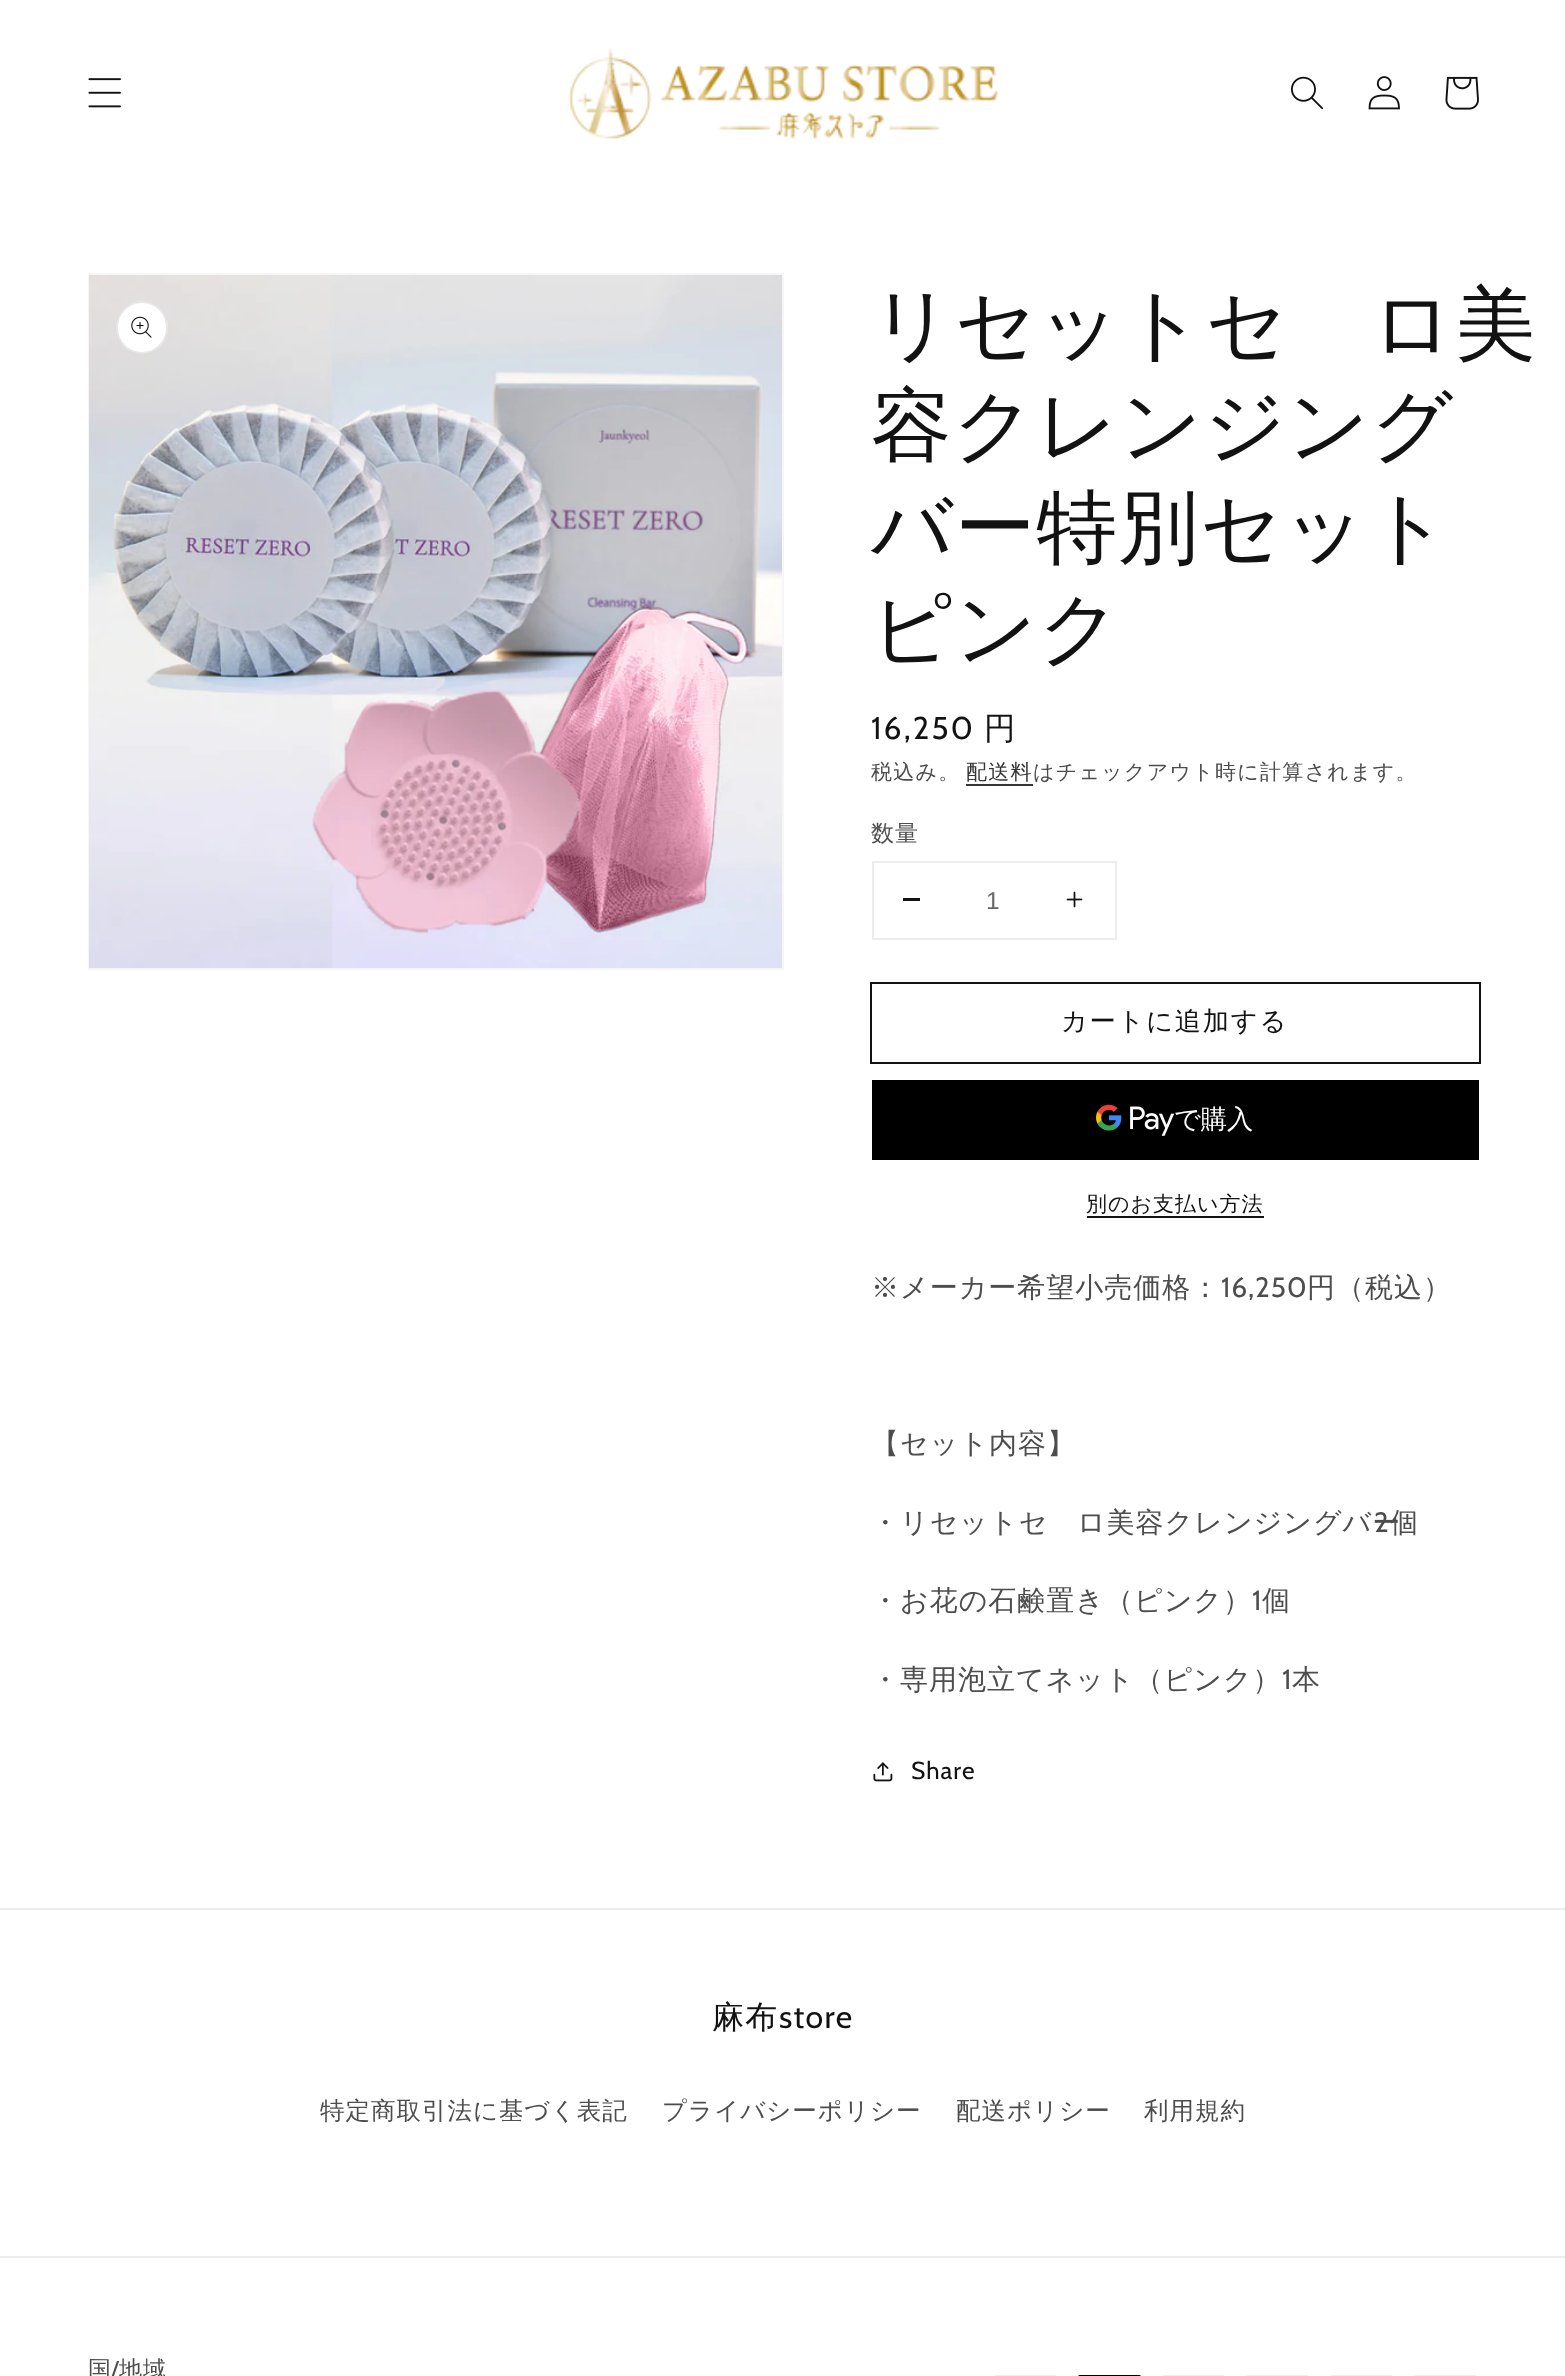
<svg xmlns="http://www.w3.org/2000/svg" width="1565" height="2376">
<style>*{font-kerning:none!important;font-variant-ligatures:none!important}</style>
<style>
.a{font:500 80.5px WenQuanYi Zen Hei;letter-spacing:1.25px;fill:#121212}
.b{font:31.5px Cabin;letter-spacing:2.25px;fill:#121212}
.c{font:500 31.5px WenQuanYi Zen Hei;letter-spacing:2.25px;fill:#121212}
.d{font:500 21px WenQuanYi Zen Hei;letter-spacing:1.25px;fill:#4d4d4d}
.e{font:500 21px WenQuanYi Zen Hei;letter-spacing:1.25px;fill:#363636}
.f{font:500 23px WenQuanYi Zen Hei;letter-spacing:1px;fill:#4d4d4d}
.g{font:24.5px Liberation Sans;fill:#686868}
.h{font:500 26.25px WenQuanYi Zen Hei;letter-spacing:1.75px;fill:#121212}
.i{font:500 26.25px WenQuanYi Zen Hei;fill:#fff}
.j{font:500 21px WenQuanYi Zen Hei;letter-spacing:1px;fill:#121212}
.k{font:500 28px WenQuanYi Zen Hei;letter-spacing:1px;fill:#4d4d4d}
.l{font:28px Cabin;letter-spacing:1px;fill:#4d4d4d}
.m{font:24.5px Cabin;letter-spacing:1px;fill:#121212}
.n{font:500 32px WenQuanYi Zen Hei;letter-spacing:1.25px;fill:#121212}
.o{font:32px Cabin;letter-spacing:1.25px;fill:#121212}
.p{font:500 24.5px WenQuanYi Zen Hei;letter-spacing:1px;fill:#4d4d4d}
.q{font:23px Cabin;letter-spacing:1px;fill:#4d4d4d}
</style>
<rect width="100%" height="100%" fill="#fff"/>
<image href="1.png" x="88" y="78" width="33" height="30"/>
<image href="2.png" x="568" y="48" width="430" height="91"/>
<image href="3.png" x="1291" y="76" width="32" height="34"/>
<image href="4.png" x="1368" y="76" width="32" height="34"/>
<image href="5.png" x="1445" y="76" width="34" height="34"/>
<path fill="none" stroke="#f6f6f6" stroke-width="2" d="M89 274h694v695H89z"/>
<image href="6.png" x="89" y="275" width="693" height="693"/>
<rect fill="#fff" x="116" y="301" width="52" height="53" rx="26"/>
<rect fill="none" stroke="#1212121a" stroke-width="2" x="117" y="302" width="50" height="51" rx="25"/>
<image href="7.png" x="131" y="316" width="21" height="22"/>
<path fill="#363636" d="M966 784h67v2H966z"/>
<path fill="none" stroke="#ececec" stroke-width="2" d="M873 862h243v77H873z"/>
<path fill="#121212" d="M903 898h17v3H903z"/>
<image href="8.png" x="1066" y="891" width="17" height="17"/>
<path fill="none" stroke="#121212" stroke-width="2" d="M871 983h609v80H871z"/>
<path fill="#000" d="M872 1080h607v80H872z"/>
<image href="9.png" x="1096" y="1104" width="78" height="32"/>
<path fill="#121212" d="M1087 1216h177v2H1087z"/>
<image href="10.png" x="873" y="1762" width="20" height="20"/>
<path fill="#ececec" d="M0 1908h1565v2H0z"/>
<path fill="#ececec" d="M0 2256h1565v2H0z"/>
<image href="11.png" x="994" y="2375" width="62" height="1"/>
<image href="12.png" x="1078" y="2375" width="63" height="1"/>
<image href="11.png" x="1162" y="2375" width="62" height="1"/>
<image href="11.png" x="1246" y="2375" width="62" height="1"/>
<image href="11.png" x="1330" y="2375" width="62" height="1"/>
<image href="11.png" x="1414" y="2375" width="62" height="1"/>
<text class="a" x="871" y="352">リセットゼロ美</text>
<text class="a" x="871" y="453">容クレンジング</text>
<text class="a" x="871" y="555">バー特別セット</text>
<text class="a" x="871" y="656">ピンク</text>
<text class="b" x="871" y="739">16,250</text>
<text class="c" x="984" y="739">円</text>
<text class="d" x="871" y="779">税込み。</text>
<text class="e" x="966" y="779">配送料</text>
<text class="d" x="1033" y="779">はチェックアウト時に計算されます。</text>
<text class="f" x="871" y="841">数量</text>
<text class="g" x="986" y="909">1</text>
<text class="h" x="1061" y="1030">カートに追加する</text>
<text class="i" x="1174" y="1128">で購入</text>
<text class="j" x="1086" y="1211">別のお支払い方法</text>
<text class="k" x="871" y="1297">※メーカー希望小売価格：</text>
<text class="l" x="1221" y="1297">16,250</text>
<text class="k" x="1307" y="1297">円（税込）</text>
<text class="k" x="871" y="1453">【セット内容】</text>
<text class="k" x="871" y="1532">・リセットゼロ美容クレンジングバー</text>
<text class="l" x="1374" y="1532">2</text>
<text class="k" x="1390" y="1532">個</text>
<text class="k" x="871" y="1610">・お花の石鹸置き（ピンク）</text>
<text class="l" x="1252" y="1610">1</text>
<text class="k" x="1262" y="1610">個</text>
<text class="k" x="871" y="1689">・専用泡立てネット（ピンク）</text>
<text class="l" x="1282" y="1689">1</text>
<text class="k" x="1292" y="1689">本</text>
<text class="m" x="911" y="1779">Share</text>
<text class="n" x="712" y="2028">麻布</text>
<text class="o" x="779" y="2028">store</text>
<text class="p" x="320" y="2119">特定商取引法に基づく表記</text>
<text class="p" x="662" y="2119">プライバシーポリシー</text>
<text class="p" x="956" y="2119">配送ポリシー</text>
<text class="p" x="1144" y="2119">利用規約</text>
<text class="f" x="88" y="2377">国</text>
<text class="q" x="111" y="2377">/</text>
<text class="f" x="119" y="2377">地域</text>
</svg>
